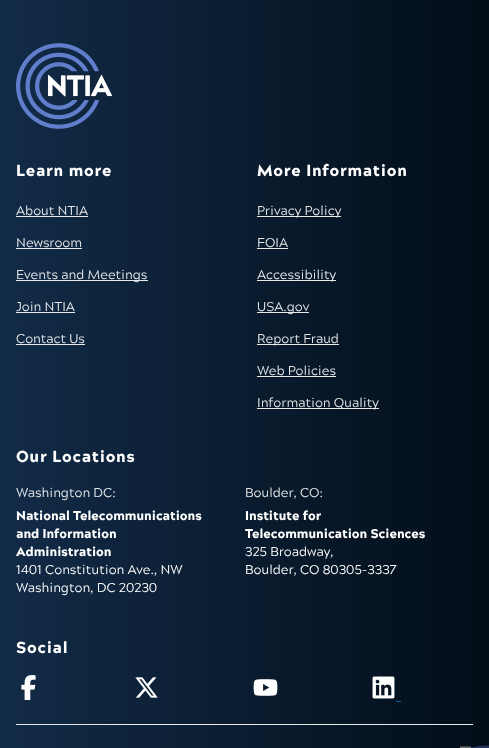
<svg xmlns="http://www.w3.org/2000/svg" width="489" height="748">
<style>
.a{font:900 16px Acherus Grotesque;letter-spacing:0.75px;fill:#fff}
.b{font:12.75px Acherus Grotesque;fill:#e8e9ea}
.c{font:900 12.75px Acherus Grotesque;fill:#fff}
.d{font:12.75px Acherus Grotesque;fill:#fff}
</style>
<defs>
<linearGradient id="g1" gradientUnits="userSpaceOnUse" x1="0" y1="413" x2="489" y2="413"><stop offset="0" stop-color="#122b47"/><stop offset="1" stop-color="#020d18"/></linearGradient>
</defs>
<rect width="100%" height="100%" fill="#fff"/>
<path fill="url(#g1)" d="M0 0h489v748H0z"/>
<image href="1.png" x="16" y="43" width="96" height="86"/>
<path fill="#e8e9ea" d="M16 216h72v1H16z"/>
<path fill="#e8e9ea" d="M16 248h66v1H16z"/>
<path fill="#e8e9ea" d="M16 280h132v1H16z"/>
<path fill="#e8e9ea" d="M16 312h59v1H16z"/>
<path fill="#e8e9ea" d="M16 344h69v1H16z"/>
<path fill="#e8e9ea" d="M257 216h84v1H257z"/>
<path fill="#e8e9ea" d="M257 248h31v1H257z"/>
<path fill="#e8e9ea" d="M257 280h79v1H257z"/>
<path fill="#e8e9ea" d="M257 312h52v1H257z"/>
<path fill="#e8e9ea" d="M257 344h82v1H257z"/>
<path fill="#e8e9ea" d="M257 376h79v1H257z"/>
<path fill="#e8e9ea" d="M257 408h122v1H257z"/>
<image href="2.png" x="21" y="675" width="15" height="25"/>
<image href="3.png" x="135" y="677" width="23" height="21"/>
<image href="4.png" x="253" y="679" width="25" height="17"/>
<image href="5.png" x="372" y="676" width="23" height="23"/>
<path fill="#005ea2" d="M396 701h5v1H396z"/>
<path fill="#e8e9ea" d="M16 724h457v1H16z"/>
<image href="7.png" x="470" y="745" width="19" height="3"/>
<image href="6.png" x="459" y="746" width="12" height="2"/>
<text class="a" x="16" y="176">Learn more</text>
<text class="b" x="16" y="215">About NTIA</text>
<text class="b" x="16" y="247">Newsroom</text>
<text class="b" x="16" y="279">Events and Meetings</text>
<text class="b" x="16" y="311">Join NTIA</text>
<text class="b" x="16" y="343">Contact Us</text>
<text class="a" x="257" y="176">More Information</text>
<text class="b" x="257" y="215">Privacy Policy</text>
<text class="b" x="257" y="247">FOIA</text>
<text class="b" x="257" y="279">Accessibility</text>
<text class="b" x="257" y="311">USA.gov</text>
<text class="b" x="257" y="343">Report Fraud</text>
<text class="b" x="257" y="375">Web Policies</text>
<text class="b" x="257" y="407">Information Quality</text>
<text class="a" x="16" y="462">Our Locations</text>
<text class="b" x="16" y="497">Washington DC:</text>
<text class="c" x="16" y="520">National Telecommunications</text>
<text class="c" x="16" y="538">and Information</text>
<text class="c" x="16" y="556">Administration</text>
<text class="d" x="16" y="574">1401 Constitution Ave., NW</text>
<text class="d" x="16" y="592">Washington, DC 20230</text>
<text class="b" x="245" y="497">Boulder, CO:</text>
<text class="c" x="245" y="520">Institute for</text>
<text class="c" x="245" y="538">Telecommunication Sciences</text>
<text class="d" x="245" y="556">325 Broadway,</text>
<text class="d" x="245" y="574">Boulder, CO 80305-3337</text>
<text class="a" x="16" y="653">Social</text>
</svg>
